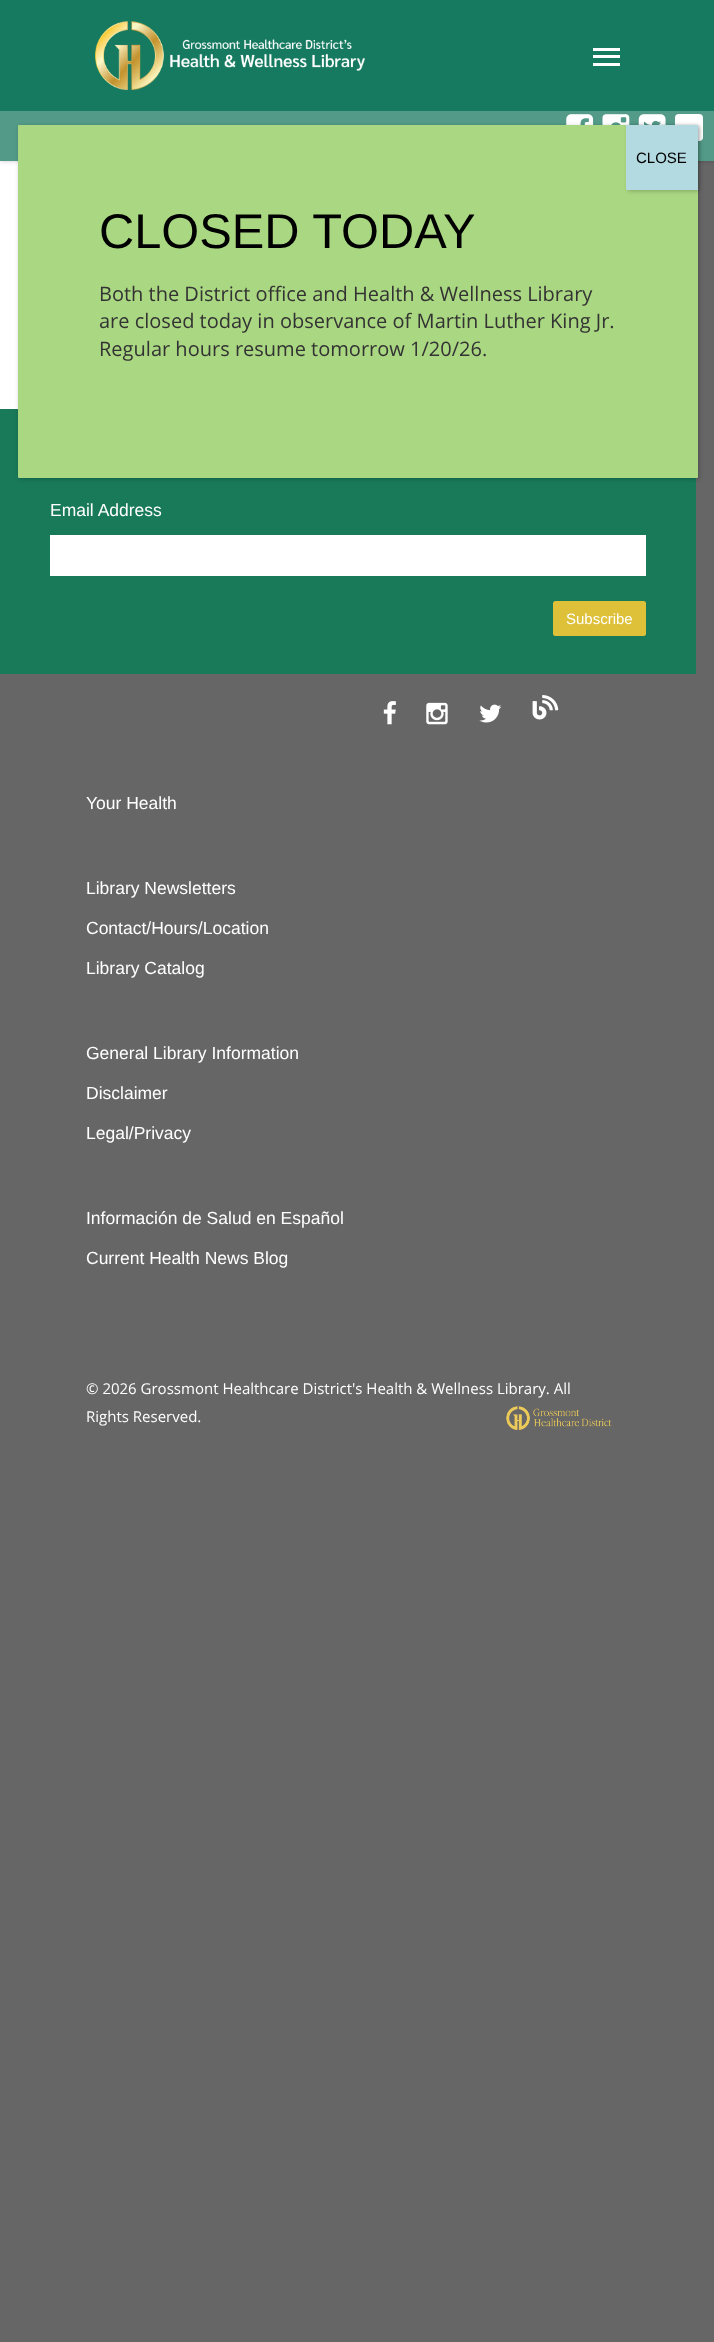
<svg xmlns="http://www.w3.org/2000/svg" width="714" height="2342">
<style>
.a{font:15px Liberation Sans;fill:#000}
.b{font:48.75px Liberation Sans;fill:#000}
.c{font:20px Open Sans;fill:#333}
.d{font:17.5px Liberation Sans;fill:#fff}
.e{font:15px Liberation Sans;fill:#fff}
.f{font:15px Open Sans;fill:#fff}
</style>
<rect width="100%" height="100%" fill="#666"/>
<path fill="#fff" d="M0 161h18v248H0z"/>
<path fill="#00000038" filter="blur(2px)" d="M0 0h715v161H0z"/>
<path fill="#167a60" d="M0 0h714v111H0z"/>
<image href="1.png" x="95" y="21" width="270" height="69"/>
<path fill="#fff" d="M593 48h27v3H593z"/>
<path fill="#fff" d="M593 63h27v3H593z"/>
<path fill="#fff" d="M593 55h27v3H593z"/>
<path fill="#539b88" d="M0 111h714v50H0z"/>
<image href="2.png" x="566" y="114" width="28" height="11"/>
<image href="3.png" x="602" y="114" width="28" height="11"/>
<image href="4.png" x="638" y="114" width="28" height="11"/>
<rect fill="#fff" x="675" y="114" width="28" height="27" rx="4"/>
<path fill="#197a5a" d="M0 409h696v265H0z"/>
<rect fill="#0202023b" filter="blur(2px)" x="19" y="126" width="680" height="353" rx="1"/>
<rect fill="#aad782" x="18" y="125" width="680" height="353" rx="1"/>
<path fill="#0202023b" filter="blur(2px)" d="M628 126h71v65H628z"/>
<path fill="#b3d9e1" d="M626 125h72v65H626z"/>
<path fill="#fff" d="M50 535h596v41H50z"/>
<rect fill="#dec138" x="553" y="601" width="93" height="35" rx="2.5"/>
<image href="5.png" x="383" y="701" width="13" height="24"/>
<image href="6.png" x="426" y="702" width="22" height="23"/>
<image href="7.png" x="479" y="704" width="23" height="19"/>
<image href="8.png" x="532" y="695" width="27" height="25"/>
<image href="9.png" x="506" y="1406" width="106" height="24"/>
<text class="a" x="636" y="163">CLOSE</text>
<text class="b" x="99" y="248">CLOSED TODAY</text>
<text class="c" x="99" y="301">Both the District office and Health &amp; Wellness Library</text>
<text class="c" x="99" y="328">are closed today in observance of Martin Luther King Jr.</text>
<text class="c" x="99" y="356">Regular hours resume tomorrow 1/20/26.</text>
<text class="d" x="50" y="516">Email Address</text>
<text class="e" x="566" y="624">Subscribe</text>
<text class="d" x="86" y="809">Your Health</text>
<text class="d" x="86" y="894">Library Newsletters</text>
<text class="d" x="86" y="934">Contact/Hours/Location</text>
<text class="d" x="86" y="974">Library Catalog</text>
<text class="d" x="86" y="1059">General Library Information</text>
<text class="d" x="86" y="1099">Disclaimer</text>
<text class="d" x="86" y="1139">Legal/Privacy</text>
<text class="d" x="86" y="1224">Información de Salud en Español</text>
<text class="d" x="86" y="1264">Current Health News Blog</text>
<text class="f" x="86" y="1394">© 2026 Grossmont Healthcare District's Health &amp; Wellness Library. All</text>
<text class="f" x="86" y="1422">Rights Reserved.</text>
</svg>
